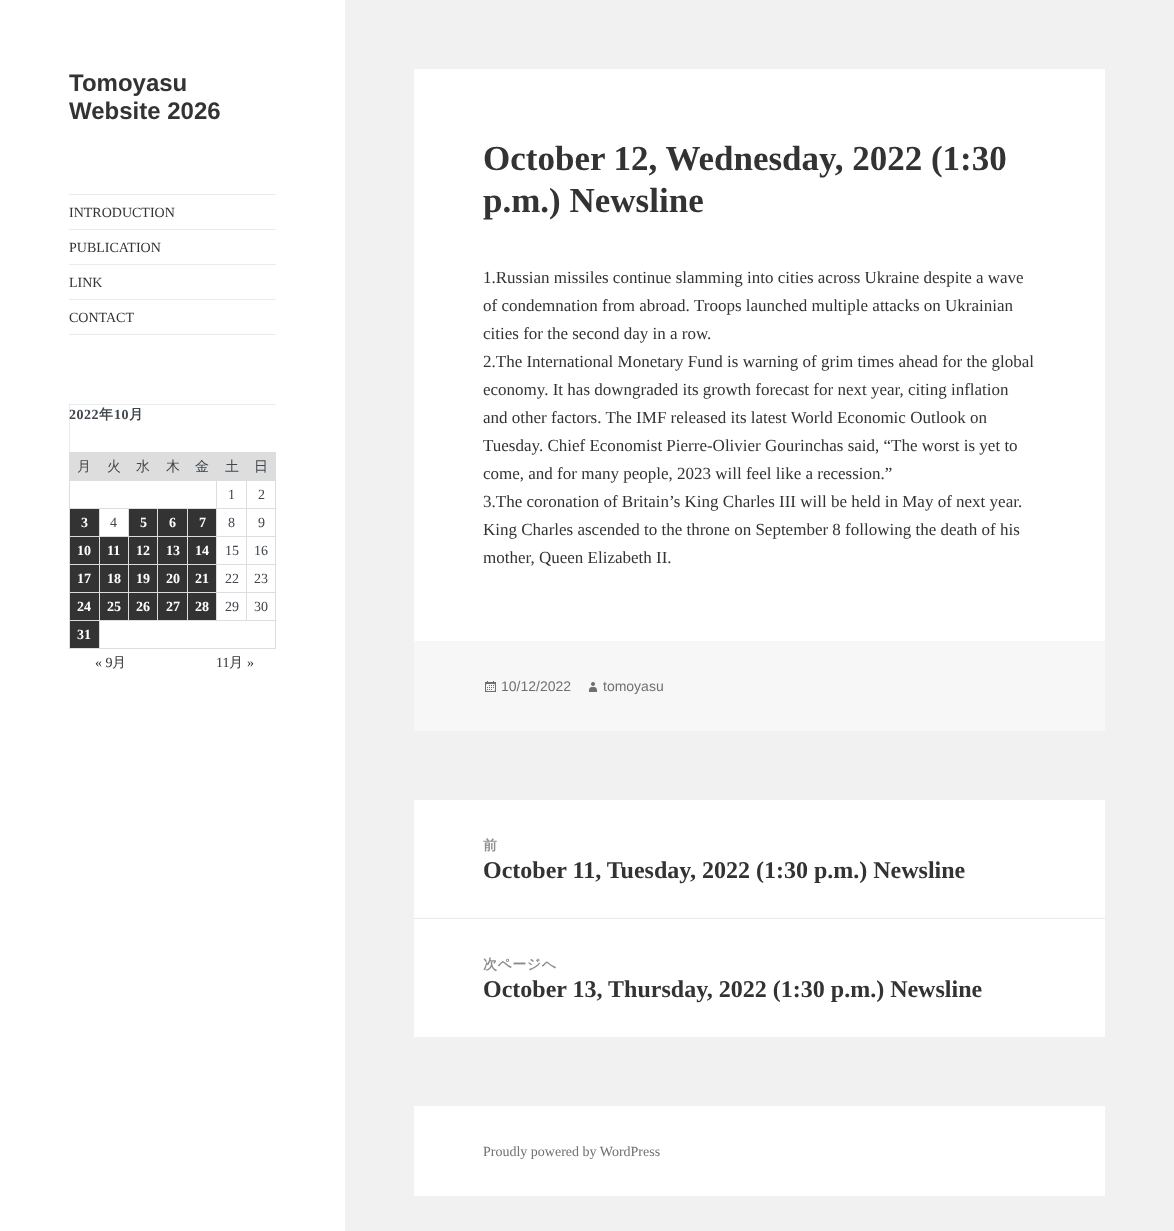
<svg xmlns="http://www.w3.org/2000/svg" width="1174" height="1231">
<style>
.a{font:bold 24px Liberation Sans;fill:#333}
.b{font:14px Liberation Serif;fill:#333}
.c{font:bold 14px Liberation Serif;letter-spacing:0.5px;fill:#40464d}
.d{font:bold 14px WenQuanYi Zen Hei;letter-spacing:0.5px;fill:#40464d}
.e{font:500 14px WenQuanYi Zen Hei;fill:#40464d}
.f{font:14px Liberation Serif;fill:#40464d}
.g{font:bold 14px Liberation Serif;fill:#fff}
.h{font:500 14px WenQuanYi Zen Hei;fill:#333}
.i{font:bold 35px Liberation Serif;fill:#333}
.j{font:17px Liberation Serif;fill:#333}
.k{font:14px Liberation Sans;fill:#707070}
.l{font:bold 14px WenQuanYi Zen Hei;letter-spacing:0.5px;fill:#8d8d8d}
.m{font:bold 24px Liberation Serif;fill:#333}
.n{font:14px Liberation Serif;fill:#707070}
</style>
<rect width="100%" height="100%" fill="#f1f1f1"/>
<path fill="#fff" d="M0 0h345v1231H0z"/>
<path fill="#ebebeb" d="M69 404h1v48H69z"/>
<path fill="#ebebeb" d="M69 194h207v1H69z"/>
<path fill="#ebebeb" d="M69 334h207v1H69z"/>
<path fill="#ebebeb" d="M69 229h207v1H69z"/>
<path fill="#ebebeb" d="M69 264h207v1H69z"/>
<path fill="#ebebeb" d="M69 299h207v1H69z"/>
<path fill="#ebebeb" d="M69 404h207v1H69z"/>
<path fill="#d9d9d9" d="M69 404h1v1H69z"/>
<path fill="#ddd" d="M70 453h147v27H70z"/>
<path fill="#ddd" d="M69 452h207v1H69z"/>
<path fill="#ddd" d="M246 508h30v1H246z"/>
<path fill="#ddd" d="M246 536h30v1H246z"/>
<path fill="#ddd" d="M246 564h30v1H246z"/>
<path fill="#ddd" d="M246 592h30v1H246z"/>
<path fill="#ddd" d="M99 620h177v1H99z"/>
<path fill="#ddd" d="M246 592h1v29H246z"/>
<path fill="#ddd" d="M216 592h31v1H216z"/>
<path fill="#ddd" d="M246 564h1v29H246z"/>
<path fill="#ddd" d="M216 564h31v1H216z"/>
<path fill="#ddd" d="M246 536h1v29H246z"/>
<path fill="#ddd" d="M216 536h31v1H216z"/>
<path fill="#ddd" d="M246 508h1v29H246z"/>
<path fill="#ddd" d="M216 508h31v1H216z"/>
<path fill="#ddd" d="M216 592h1v29H216z"/>
<path fill="#ddd" d="M187 592h30v1H187z"/>
<path fill="#ddd" d="M216 564h1v29H216z"/>
<path fill="#ddd" d="M187 564h30v1H187z"/>
<path fill="#ddd" d="M216 536h1v29H216z"/>
<path fill="#ddd" d="M187 536h30v1H187z"/>
<path fill="#ddd" d="M216 508h1v29H216z"/>
<path fill="#ddd" d="M187 508h30v1H187z"/>
<path fill="#ddd" d="M216 480h1v29H216z"/>
<path fill="#ddd" d="M69 480h148v1H69z"/>
<path fill="#ddd" d="M187 592h1v29H187z"/>
<path fill="#ddd" d="M157 592h31v1H157z"/>
<path fill="#ddd" d="M187 564h1v29H187z"/>
<path fill="#ddd" d="M157 564h31v1H157z"/>
<path fill="#ddd" d="M187 536h1v29H187z"/>
<path fill="#ddd" d="M157 536h31v1H157z"/>
<path fill="#ddd" d="M187 508h1v29H187z"/>
<path fill="#ddd" d="M157 508h31v1H157z"/>
<path fill="#ddd" d="M157 592h1v29H157z"/>
<path fill="#ddd" d="M128 592h30v1H128z"/>
<path fill="#ddd" d="M157 564h1v29H157z"/>
<path fill="#ddd" d="M128 564h30v1H128z"/>
<path fill="#ddd" d="M157 536h1v29H157z"/>
<path fill="#ddd" d="M128 536h30v1H128z"/>
<path fill="#ddd" d="M157 508h1v29H157z"/>
<path fill="#ddd" d="M128 508h30v1H128z"/>
<path fill="#ddd" d="M128 592h1v29H128z"/>
<path fill="#ddd" d="M99 592h30v1H99z"/>
<path fill="#ddd" d="M128 564h1v29H128z"/>
<path fill="#ddd" d="M99 564h30v1H99z"/>
<path fill="#ddd" d="M128 536h1v29H128z"/>
<path fill="#ddd" d="M99 536h30v1H99z"/>
<path fill="#ddd" d="M128 508h1v29H128z"/>
<path fill="#ddd" d="M99 508h30v1H99z"/>
<path fill="#ddd" d="M275 620h1v29H275z"/>
<path fill="#ddd" d="M99 648h177v1H99z"/>
<path fill="#ddd" d="M99 620h1v29H99z"/>
<path fill="#ddd" d="M69 620h31v1H69z"/>
<path fill="#ddd" d="M99 592h1v29H99z"/>
<path fill="#ddd" d="M69 592h31v1H69z"/>
<path fill="#ddd" d="M99 564h1v29H99z"/>
<path fill="#ddd" d="M69 564h31v1H69z"/>
<path fill="#ddd" d="M99 536h1v29H99z"/>
<path fill="#ddd" d="M69 536h31v1H69z"/>
<path fill="#ddd" d="M99 508h1v29H99z"/>
<path fill="#ddd" d="M69 508h31v1H69z"/>
<path fill="#ddd" d="M69 648h31v1H69z"/>
<path fill="#ddd" d="M69 620h1v29H69z"/>
<path fill="#ddd" d="M69 592h1v29H69z"/>
<path fill="#ddd" d="M69 564h1v29H69z"/>
<path fill="#ddd" d="M69 536h1v29H69z"/>
<path fill="#ddd" d="M69 508h1v29H69z"/>
<path fill="#ddd" d="M69 480h1v29H69z"/>
<path fill="#ddd" d="M69 452h1v29H69z"/>
<path fill="#ddd" d="M217 453h59v28H217z"/>
<path fill="#ddd" d="M246 480h1v29H246z"/>
<path fill="#333" d="M70 509h29v27H70z"/>
<path fill="#333" d="M129 509h28v27H129z"/>
<path fill="#333" d="M158 509h29v27H158z"/>
<path fill="#333" d="M188 509h28v27H188z"/>
<path fill="#ddd" d="M275 592h1v29H275z"/>
<path fill="#ddd" d="M275 564h1v29H275z"/>
<path fill="#ddd" d="M275 536h1v29H275z"/>
<path fill="#ddd" d="M275 480h1v57H275z"/>
<path fill="#333" d="M70 537h29v27H70z"/>
<path fill="#333" d="M100 537h28v27H100z"/>
<path fill="#333" d="M129 537h28v27H129z"/>
<path fill="#333" d="M158 537h29v27H158z"/>
<path fill="#333" d="M188 537h28v27H188z"/>
<path fill="#333" d="M70 565h29v27H70z"/>
<path fill="#333" d="M100 565h28v27H100z"/>
<path fill="#333" d="M129 565h28v27H129z"/>
<path fill="#333" d="M158 565h29v27H158z"/>
<path fill="#333" d="M188 565h28v27H188z"/>
<path fill="#333" d="M70 593h29v27H70z"/>
<path fill="#333" d="M100 593h28v27H100z"/>
<path fill="#333" d="M129 593h28v27H129z"/>
<path fill="#333" d="M158 593h29v27H158z"/>
<path fill="#333" d="M188 593h28v27H188z"/>
<path fill="#333" d="M70 621h29v27H70z"/>
<path fill="#fff" d="M414 69h691v572H414z"/>
<path fill="#f7f7f7" d="M414 641h691v90H414z"/>
<image href="1.png" x="485" y="681" width="11" height="11"/>
<image href="2.png" x="589" y="682" width="8" height="10"/>
<path fill="#fff" d="M414 800h691v237H414z"/>
<path fill="#ebebeb" d="M414 918h691v1H414z"/>
<path fill="#fff" d="M414 1106h691v90H414z"/>
<text class="a" x="69" y="91">Tomoyasu</text>
<text class="a" x="69" y="119">Website 2026</text>
<text class="b" x="69" y="217">INTRODUCTION</text>
<text class="b" x="69" y="252">PUBLICATION</text>
<text class="b" x="69" y="287">LINK</text>
<text class="b" x="69" y="322">CONTACT</text>
<text class="c" x="69" y="419">2022</text>
<text class="d" x="99" y="419">年</text>
<text class="c" x="114" y="419">10</text>
<text class="d" x="129" y="419">月</text>
<text class="e" x="77" y="471">月</text>
<text class="e" x="107" y="471">火</text>
<text class="e" x="136" y="471">水</text>
<text class="e" x="166" y="471">木</text>
<text class="e" x="195" y="471">金</text>
<text class="e" x="225" y="471">土</text>
<text class="e" x="254" y="471">日</text>
<text class="f" x="228" y="499">1</text>
<text class="f" x="258" y="499">2</text>
<text class="g" x="81" y="527">3</text>
<text class="f" x="110" y="527">4</text>
<text class="g" x="140" y="527">5</text>
<text class="g" x="169" y="527">6</text>
<text class="g" x="199" y="527">7</text>
<text class="f" x="228" y="527">8</text>
<text class="f" x="258" y="527">9</text>
<text class="g" x="77" y="555">10</text>
<text class="g" x="107" y="555">11</text>
<text class="g" x="136" y="555">12</text>
<text class="g" x="166" y="555">13</text>
<text class="g" x="195" y="555">14</text>
<text class="f" x="225" y="555">15</text>
<text class="f" x="254" y="555">16</text>
<text class="g" x="77" y="583">17</text>
<text class="g" x="107" y="583">18</text>
<text class="g" x="136" y="583">19</text>
<text class="g" x="166" y="583">20</text>
<text class="g" x="195" y="583">21</text>
<text class="f" x="225" y="583">22</text>
<text class="f" x="254" y="583">23</text>
<text class="g" x="77" y="611">24</text>
<text class="g" x="107" y="611">25</text>
<text class="g" x="136" y="611">26</text>
<text class="g" x="166" y="611">27</text>
<text class="g" x="195" y="611">28</text>
<text class="f" x="225" y="611">29</text>
<text class="f" x="254" y="611">30</text>
<text class="g" x="77" y="639">31</text>
<text class="b" x="95" y="667">« 9</text>
<text class="h" x="112" y="667">月</text>
<text class="b" x="216" y="667">11</text>
<text class="h" x="229" y="667">月</text>
<text class="b" x="247" y="667">»</text>
<text class="i" x="483" y="170">October 12, Wednesday, 2022 (1:30</text>
<text class="i" x="483" y="212">p.m.) Newsline</text>
<text class="j" x="483" y="283">1.Russian missiles continue slamming into cities across Ukraine despite a wave</text>
<text class="j" x="483" y="311">of condemnation from abroad.</text>
<text class="j" x="694" y="311">Troops launched multiple attacks on Ukrainian</text>
<text class="j" x="483" y="339">cities for the second day in a row.</text>
<text class="j" x="483" y="367">2.The International Monetary Fund is warning of grim times ahead for the global</text>
<text class="j" x="483" y="395">economy. It has downgraded its growth forecast for next year, citing inflation</text>
<text class="j" x="483" y="423">and other factors. The IMF released its latest World Economic Outlook on</text>
<text class="j" x="483" y="451">Tuesday. Chief Economist Pierre-Olivier Gourinchas said, “The worst is yet to</text>
<text class="j" x="483" y="479">come, and for many people, 2023 will feel like a recession.”</text>
<text class="j" x="483" y="507">3.The coronation of Britain’s King Charles III will be held in May of next year.</text>
<text class="j" x="483" y="535">King Charles ascended to the throne on September 8 following the death of his</text>
<text class="j" x="483" y="563">mother, Queen Elizabeth II.</text>
<text class="k" x="501" y="691">10/12/2022</text>
<text class="k" x="603" y="691">tomoyasu</text>
<text class="l" x="483" y="850">前</text>
<text class="m" x="483" y="878">October 11, Tuesday, 2022 (1:30 p.m.) Newsline</text>
<text class="l" x="483" y="969">次ページへ</text>
<text class="m" x="483" y="997">October 13, Thursday, 2022 (1:30 p.m.) Newsline</text>
<text class="n" x="483" y="1156">Proudly powered by WordPress</text>
</svg>
